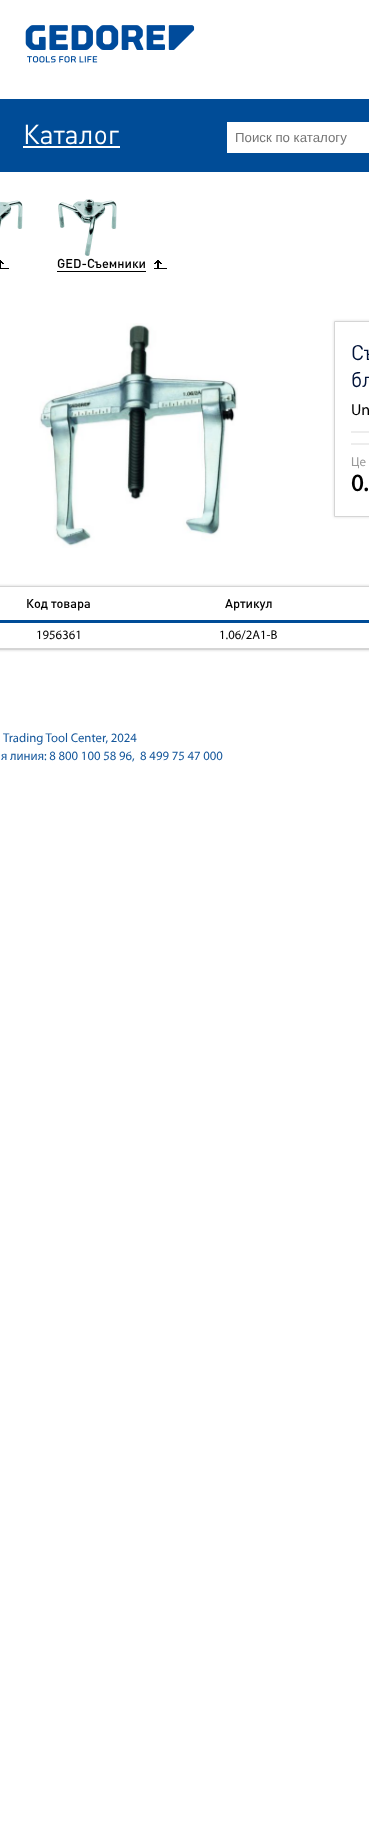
<svg xmlns="http://www.w3.org/2000/svg" width="369" height="1829">
<style>
.a{font:27px DIN;fill:#fff}
.b{font:13.25px Liberation Sans;fill:#757575}
.c{font:500 12.75px DIN;fill:#000}
.d{font:21px DIN;fill:#001238}
.e{font:16px Myriad;fill:#000}
.f{font:13px Myriad;fill:#999}
.g{font:bold 24px Myriad;fill:#000}
.h{font:12.75px Myriad;fill:#000}
.i{font:12.75px Myriad;fill:#15579b}
</style>
<defs>
<clipPath id="clip1"><path d="M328 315h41v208h-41zm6 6h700v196h-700z" clip-rule="evenodd"/></clipPath>
<clipPath id="clip2"><path d="M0 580h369v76h-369zm-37 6h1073v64h-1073z" clip-rule="evenodd"/></clipPath>
</defs>
<rect width="100%" height="100%" fill="#fff"/>
<image href="1.png" x="25" y="25" width="170" height="38"/>
<path fill="#004c97" d="M0 99h369v73H0z"/>
<path fill="#fff" d="M23 146h97v2H23z"/>
<path fill="#fff" d="M227 122h142v31H227z"/>
<image href="2.png" x="0" y="200" width="23" height="29"/>
<path fill="#000" d="M0 268h9v1H0z"/>
<image href="3.png" x="0" y="260" width="4" height="8"/>
<image href="4.png" x="58" y="199" width="59" height="57"/>
<path fill="#000" d="M57 271h89v1H57z"/>
<path fill="#000" d="M154 268h13v1H154z"/>
<image href="5.png" x="154" y="260" width="8" height="8"/>
<image href="6.png" x="39" y="323" width="199" height="225"/>
<g clip-path="url(#clip1)">
<path fill="#dadada" filter="blur(1.5px)" d="M334 321h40v196H334z"/>
</g>
<path fill="none" stroke="#d5d5d5" d="M334.5 321.5h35v195H334.5z"/>
<path fill="#ededed" d="M351 431h18v2H351z"/>
<path fill="#ededed" d="M351 443h18v2H351z"/>
<g clip-path="url(#clip2)">
<path fill="#d0d0d0" filter="blur(1.5px)" d="M-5 586h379v64H-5z"/>
</g>
<path fill="none" stroke="#d5d5d5" d="M-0.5 586.5h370v63H-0.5z"/>
<path fill="#004c97" d="M0 620h369v3H0z"/>
<path fill="#d5d5d5" d="M0 648h369v1H0z"/>
<text class="a" x="23" y="144">Каталог</text>
<text class="b" x="235" y="142">Поиск по каталогу</text>
<text class="c" x="57" y="268">GED-Съемники</text>
<text class="d" x="351" y="360">Съ</text>
<text class="d" x="351" y="387">бл</text>
<text class="e" x="351" y="415">Un</text>
<text class="f" x="351" y="466">Це</text>
<text class="g" x="351" y="491">0.</text>
<text class="c" x="26" y="608">Код товара</text>
<text class="c" x="225" y="608">Артикул</text>
<text class="h" x="36" y="639">1956361</text>
<text class="h" x="219" y="639">1.06/2A1-B</text>
<text class="i" x="3" y="742">Trading Tool Center, 2024</text>
<text class="i" xml:space="preserve" x="1" y="760">я линия: 8 800 100 58 96,  8 499 75 47 000</text>
</svg>
